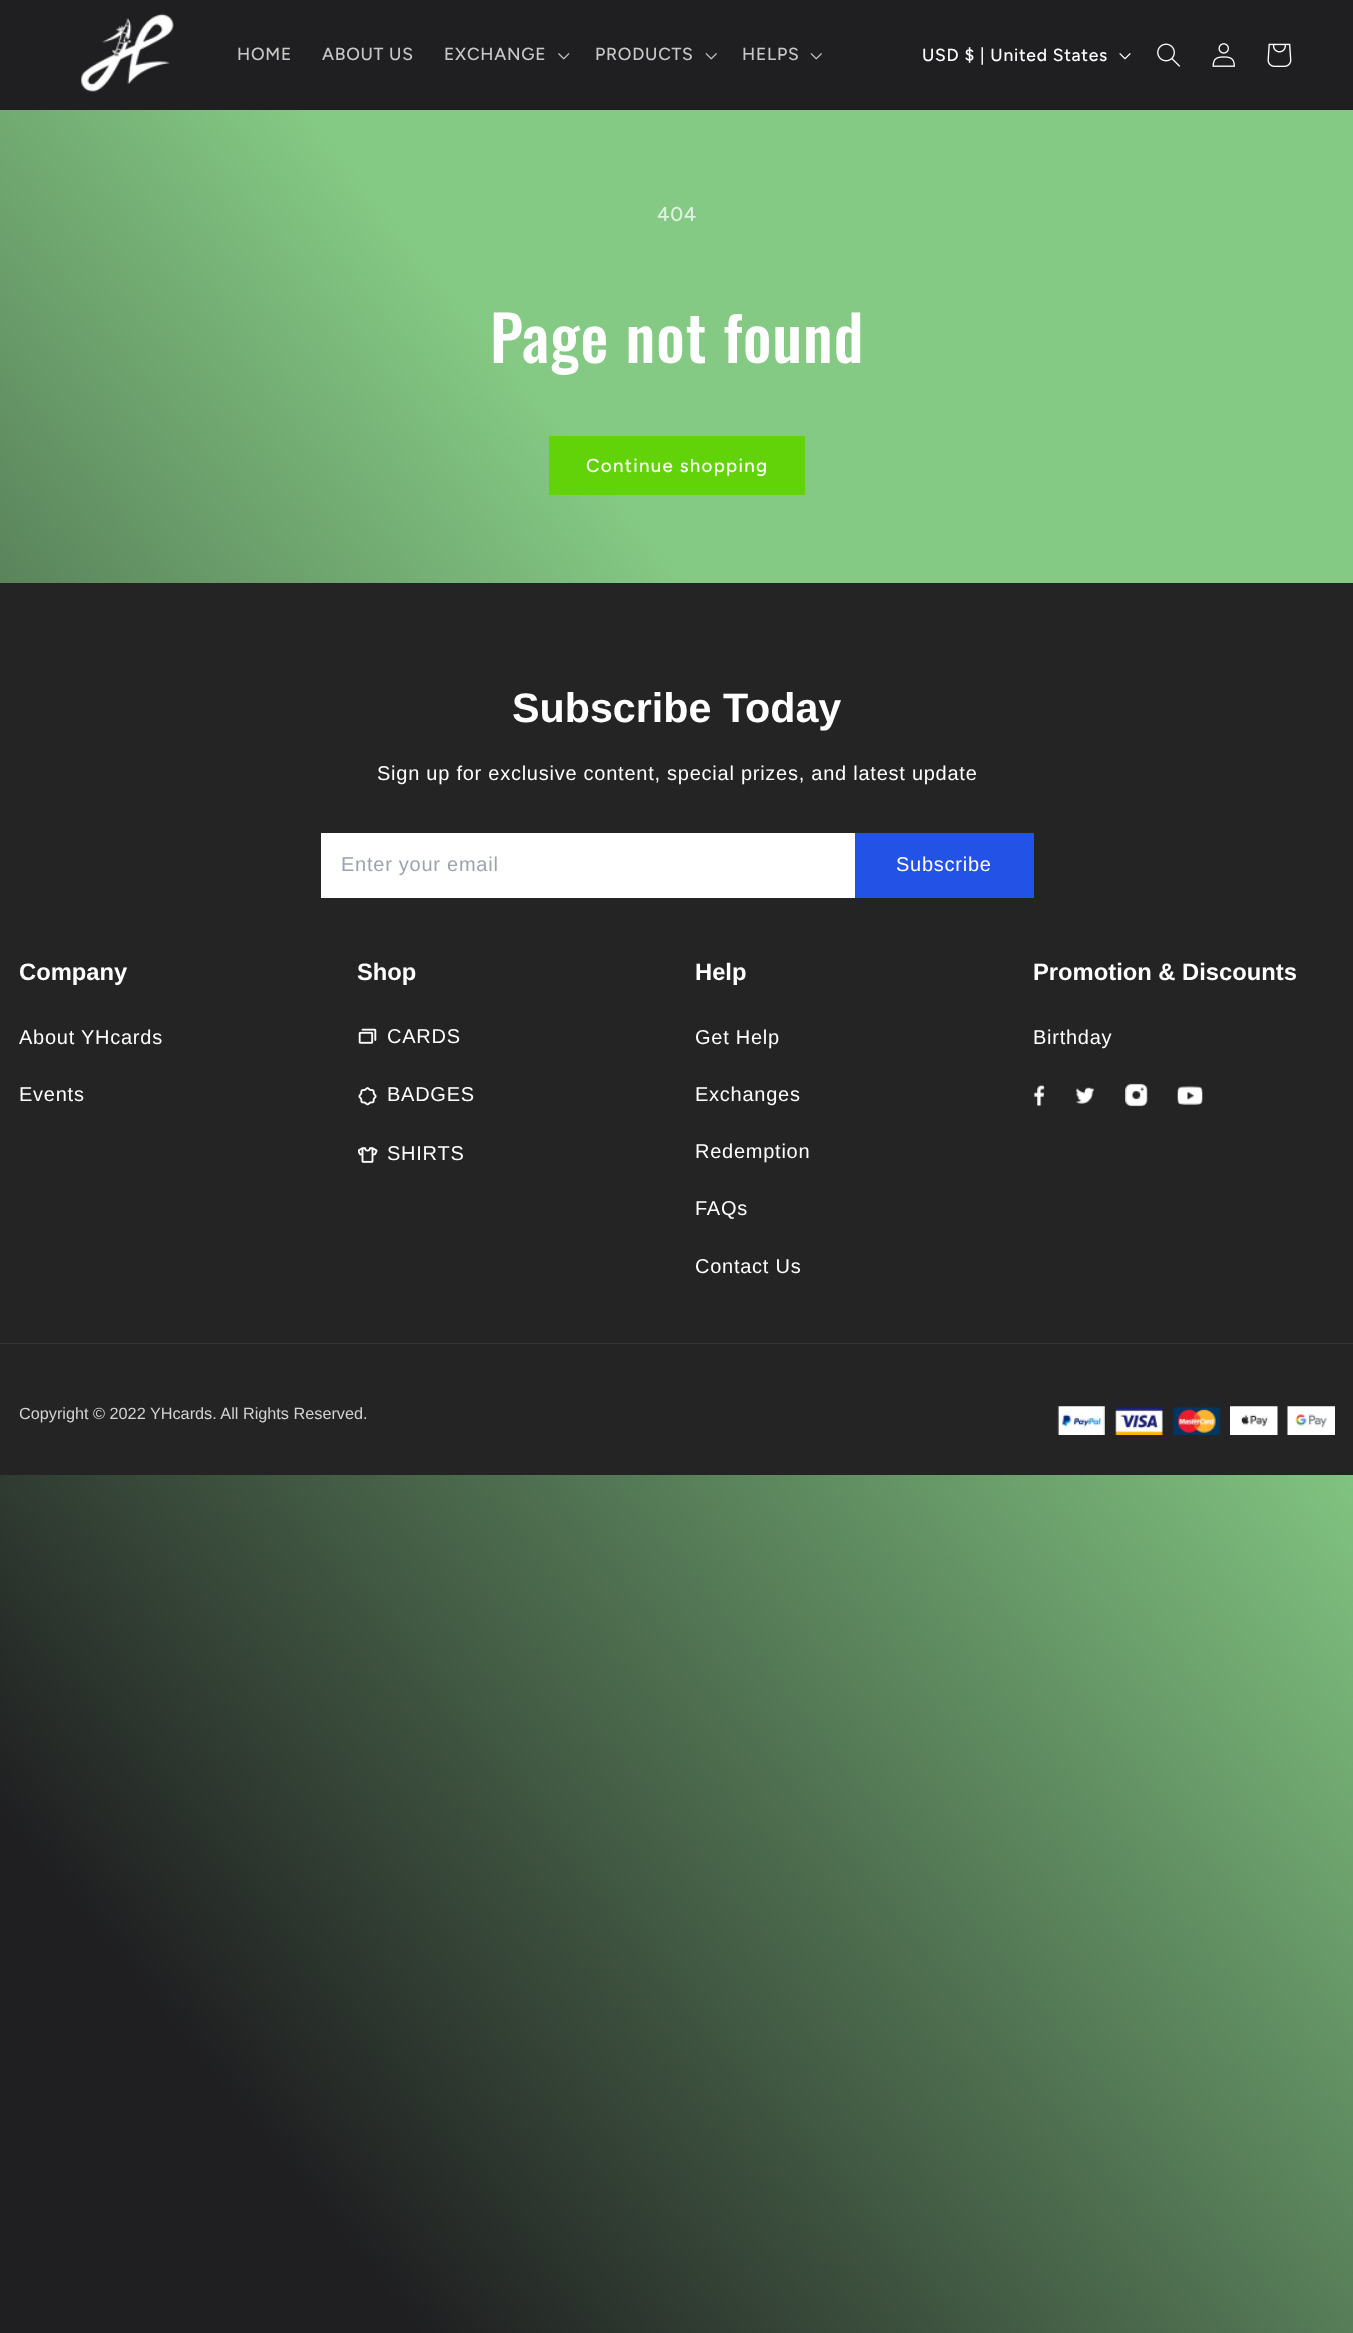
<svg xmlns="http://www.w3.org/2000/svg" width="1353" height="2333">
<style>
.a{font:500 17.5px Figtree;letter-spacing:0.75px;fill:#c7c7c8}
.b{font:500 17.5px Figtree;letter-spacing:0.75px;fill:#fff}
.c{font:500 20px Figtree;letter-spacing:0.75px;fill:#e0f2e0}
.d{font:500 62.5px Oswald;letter-spacing:1px;fill:#fff}
.e{font:500 18.75px Figtree;letter-spacing:1.25px;fill:#fff}
.f{font:bold 41.25px Liberation Sans;fill:#fff}
.g{font:20px Liberation Sans;letter-spacing:0.75px;fill:#fff}
.h{font:20px Liberation Sans;letter-spacing:0.75px;fill:#9ca3af}
.i{font:bold 23.75px Liberation Sans;fill:#fff}
.j{font:16.25px Liberation Sans;fill:#d3d3d3}
</style>
<defs>
<linearGradient id="g1" gradientUnits="userSpaceOnUse" x1="-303" y1="1960" x2="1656" y2="374"><stop offset="0.13" stop-color="#1f1f21"/><stop offset="0.65" stop-color="#84c984"/></linearGradient>
</defs>
<rect width="100%" height="100%" fill="#fff"/>
<path fill="url(#g1)" d="M0 110h1353v2223H0z"/>
<path fill="#1f1f21" d="M0 0h1353v110H0z"/>
<image href="1.png" x="80" y="13" width="94" height="79"/>
<image href="2.png" x="558" y="53" width="12" height="7"/>
<image href="3.png" x="705" y="53" width="12" height="7"/>
<image href="3.png" x="810" y="53" width="12" height="7"/>
<image href="4.png" x="1119" y="53" width="12" height="7"/>
<image href="5.png" x="1157" y="43" width="23" height="24"/>
<image href="6.png" x="1212" y="43" width="23" height="24"/>
<image href="7.png" x="1267" y="43" width="25" height="24"/>
<path fill="#62d309" d="M549 436h256v59H549z"/>
<path fill="#242424" d="M0 583h1353v892H0z"/>
<path fill="#fff" d="M321 833h534v65H321z"/>
<path fill="#2352e7" d="M855 833h179v65H855z"/>
<image href="8.png" x="358" y="1028" width="19" height="16"/>
<image href="9.png" x="358" y="1087" width="19" height="19"/>
<image href="10.png" x="358" y="1147" width="20" height="16"/>
<image href="11.png" x="1033" y="1085" width="12" height="22"/>
<image href="12.png" x="1076" y="1087" width="18" height="17"/>
<image href="13.png" x="1125" y="1083" width="23" height="24"/>
<image href="14.png" x="1177" y="1086" width="26" height="19"/>
<path fill="#373737" d="M0 1343h1353v1H0z"/>
<image href="15.png" x="1057" y="1406" width="48" height="29"/>
<image href="16.png" x="1115" y="1407" width="48" height="28"/>
<image href="17.png" x="1173" y="1407" width="47" height="28"/>
<image href="18.png" x="1230" y="1406" width="48" height="29"/>
<image href="19.png" x="1287" y="1406" width="48" height="29"/>
<text class="a" x="237" y="60">HOME</text>
<text class="a" x="322" y="60">ABOUT US</text>
<text class="a" x="444" y="60">EXCHANGE</text>
<text class="a" x="595" y="60">PRODUCTS</text>
<text class="a" x="742" y="60">HELPS</text>
<text class="b" x="922" y="61">USD $ | United States</text>
<text class="c" x="657" y="221">404</text>
<text class="d" x="490" y="363">Page not found</text>
<text class="e" x="586" y="472">Continue shopping</text>
<text class="f" x="512" y="722">Subscribe Today</text>
<text class="g" x="377" y="780">Sign up for exclusive content, special prizes, and latest update</text>
<text class="h" x="341" y="871">Enter your email</text>
<text class="g" x="896" y="871">Subscribe</text>
<text class="i" x="19" y="980">Company</text>
<text class="g" x="19" y="1044">About YHcards</text>
<text class="g" x="19" y="1101">Events</text>
<text class="i" x="357" y="980">Shop</text>
<text class="g" x="387" y="1043">CARDS</text>
<text class="g" x="387" y="1101">BADGES</text>
<text class="g" x="387" y="1160">SHIRTS</text>
<text class="i" x="695" y="980">Help</text>
<text class="g" x="695" y="1044">Get Help</text>
<text class="g" x="695" y="1101">Exchanges</text>
<text class="g" x="695" y="1158">Redemption</text>
<text class="g" x="695" y="1215">FAQs</text>
<text class="g" x="695" y="1273">Contact Us</text>
<text class="i" x="1033" y="980">Promotion &amp; Discounts</text>
<text class="g" x="1033" y="1044">Birthday</text>
<text class="j" x="19" y="1419">Copyright © 2022 YHcards. All Rights Reserved.</text>
</svg>
